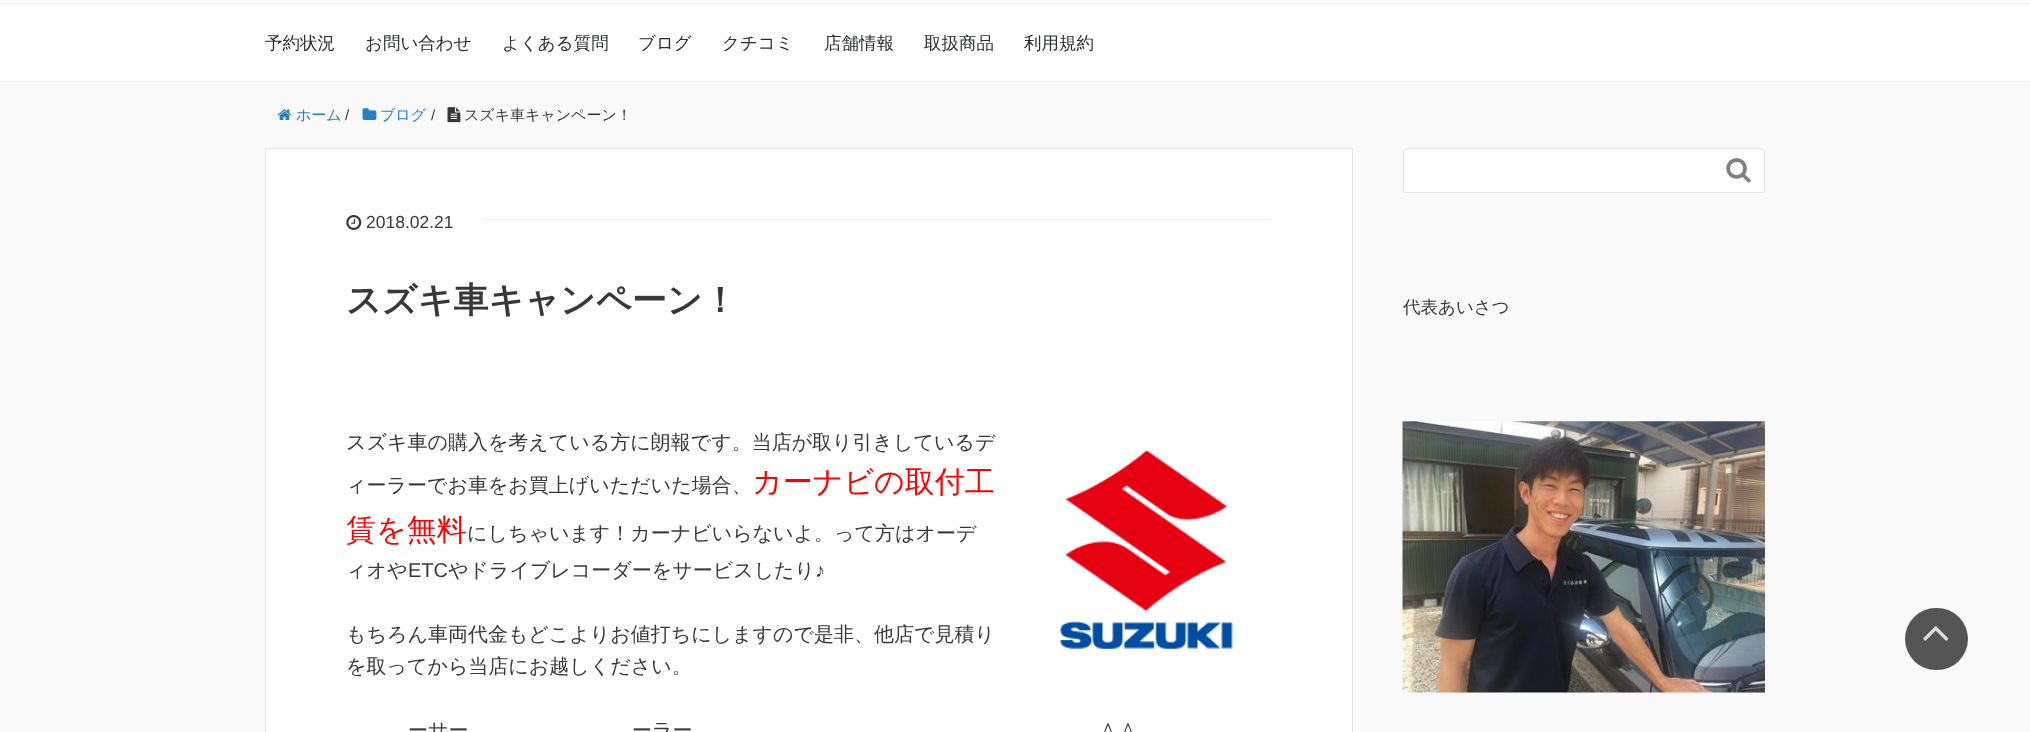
<svg xmlns="http://www.w3.org/2000/svg" width="2030" height="732">
<style>
.a{font:500 17.5px WenQuanYi Zen Hei;fill:#2b2d2d}
.b{font:500 15px WenQuanYi Zen Hei;fill:#2581c4}
.c{font:15px Liberation Sans;fill:#383838}
.d{font:500 15px WenQuanYi Zen Hei;fill:#383838}
.e{font:17.5px Liberation Sans;fill:#383838}
.f{font:bold 35px WenQuanYi Zen Hei;fill:#383838}
.g{font:500 20px WenQuanYi Zen Hei;fill:#383838}
.h{font:500 30px WenQuanYi Zen Hei;fill:#f00}
.i{font:20px Liberation Sans;fill:#383838}
.j{font:500 17.5px WenQuanYi Zen Hei;fill:#383838}
</style>
<rect width="100%" height="100%" fill="#f9f9f9"/>
<path fill="#fff" d="M0 0h2030v3H0z"/>
<path fill="#fff" d="M0 4h2030v79H0z"/>
<path fill="#efefef" d="M0 3h2030v1H0z"/>
<path fill="#efefef" d="M0 81h2030v1H0z"/>
<image href="1.png" x="277" y="109" width="15" height="11"/>
<image href="2.png" x="362" y="108" width="15" height="12"/>
<image href="3.png" x="447" y="107" width="14" height="16"/>
<path fill="#fff" stroke="#e5e5e5" d="M265.5 148.5h1087v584H265.5z"/>
<path fill="#efefef" d="M484 219h787v1H484z"/>
<image href="4.png" x="346" y="215" width="16" height="15"/>
<image href="5.png" x="1059" y="450" width="174" height="199"/>
<rect fill="#fff" stroke="#e5e5e5" x="1403.5" y="148.5" width="361" height="44" rx="2"/>
<image href="6.png" x="1726" y="158" width="25" height="25"/>
<image href="7.png" x="1402" y="421" width="363" height="272"/>
<rect fill="#545454" x="1905" y="608" width="63" height="62" rx="31"/>
<image href="8.png" x="1923" y="626" width="26" height="15"/>
<text class="a" x="265" y="49">予約状況</text>
<text class="a" x="365" y="49">お問い合わせ</text>
<text class="a" x="502" y="49">よくある質問</text>
<text class="a" x="638" y="49">ブログ</text>
<text class="a" x="722" y="49">クチコミ</text>
<text class="a" x="824" y="49">店舗情報</text>
<text class="a" x="924" y="49">取扱商品</text>
<text class="a" x="1024" y="49">利用規約</text>
<text class="b" x="296" y="120">ホーム</text>
<text class="c" x="345" y="120">/</text>
<text class="b" x="380" y="120">ブログ</text>
<text class="c" x="431" y="120">/</text>
<text class="d" x="464" y="120">スズキ車キャンペーン！</text>
<text class="e" x="366" y="228">2018.02.21</text>
<text class="f" x="346" y="312">スズキ車キャンペーン！</text>
<text class="g" x="346" y="449">スズキ車の購入を考えている方に朗報です。当店が取り引きしているデ</text>
<text class="g" x="346" y="492">ィーラーでお車をお買上げいただいた場合、</text>
<text class="h" x="752" y="492">カーナビの取付工</text>
<text class="h" x="346" y="540">賃を無料</text>
<text class="g" x="467" y="540">にしちゃいます！カーナビいらないよ。って方はオーデ</text>
<text class="g" x="346" y="577">ィオや</text>
<text class="i" x="408" y="577">ETC</text>
<text class="g" x="448" y="577">やドライブレコーダーをサービスしたり</text>
<text class="i" x="815" y="577">♪</text>
<text class="g" x="346" y="641">もちろん車両代金もどこよりお値打ちにしますので是非、他店で見積り</text>
<text class="g" x="346" y="673">を取ってから当店にお越しください。</text>
<text class="g" x="408" y="737">ーサー</text>
<text class="g" x="632" y="737">ーラー</text>
<text class="g" x="1098" y="737">＾＾</text>
<text class="j" x="1403" y="313">代表あいさつ</text>
</svg>
